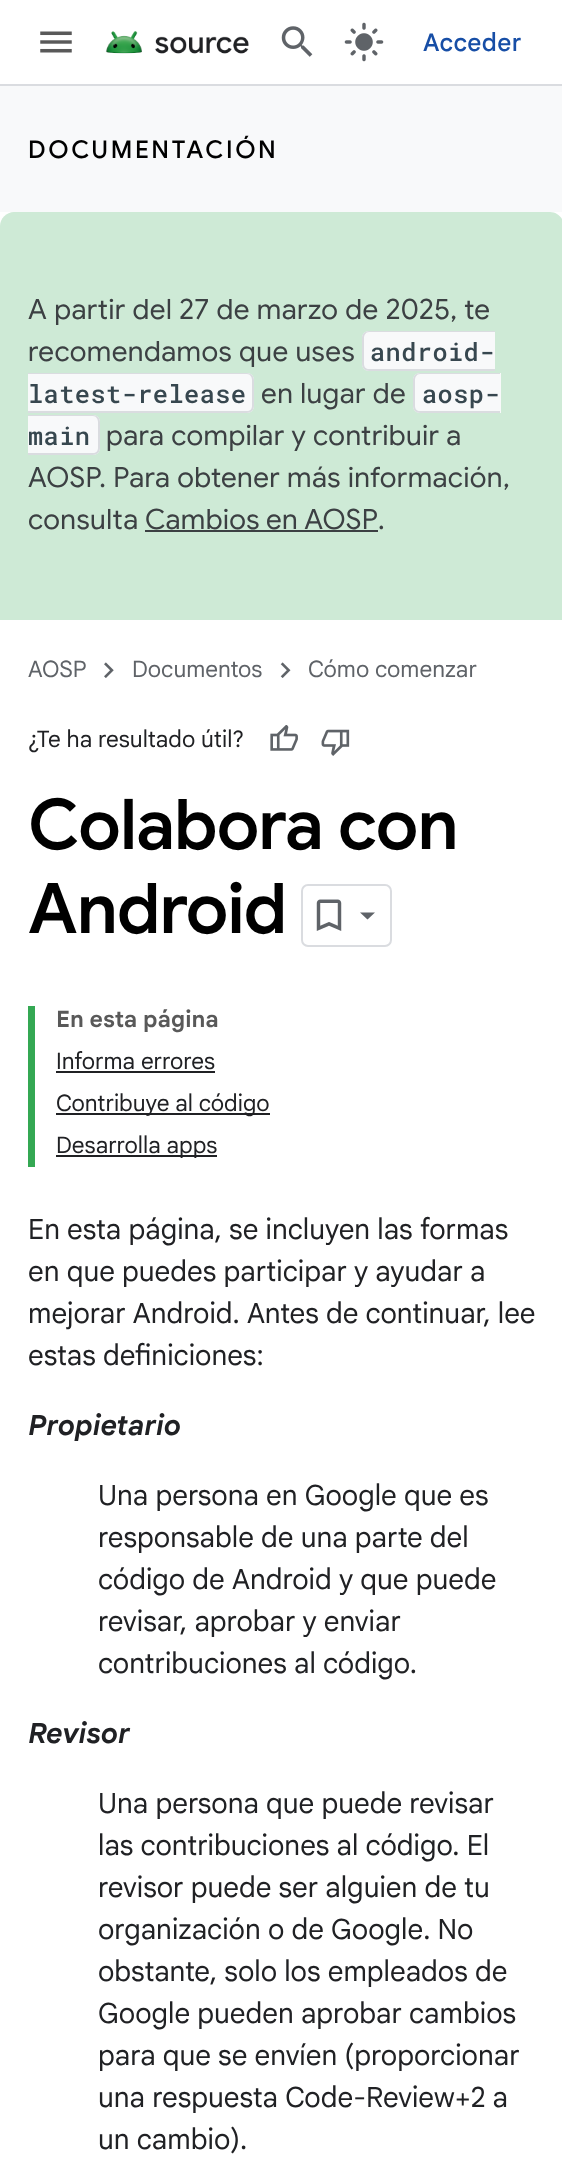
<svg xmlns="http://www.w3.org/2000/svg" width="562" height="2170">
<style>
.a{font:500 24.5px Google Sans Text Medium;letter-spacing:0.45px;fill:#174ea6}
.b{font:500 24.5px Google Sans;letter-spacing:2.6px;fill:#000}
.c{font:28px Google Sans;letter-spacing:0.45px;fill:#3c4043}
.d{font:500 25.25px Roboto Mono;letter-spacing:0.45px;fill:#37474f}
.e{font:22.75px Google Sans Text;fill:#5f6368}
.f{font:22.75px Google Sans Text;fill:#202124}
.g{font:600 70px Google Sans;letter-spacing:-0.9px;fill:#000}
.h{font:bold 22.75px Google Sans Text;fill:#595959}
.i{font:28px Google Sans Text;fill:#202124}
.j{font:italic bold 28px Google Sans Text;fill:#202124}
</style>
<rect width="100%" height="100%" fill="#fff"/>
<path fill="#dadce0" d="M0 84h562v2H0z"/>
<image href="1.png" x="40" y="31" width="32" height="22"/>
<image href="2.png" x="105" y="31" width="144" height="23"/>
<image href="3.png" x="281" y="26" width="32" height="31"/>
<image href="4.png" x="344" y="22" width="40" height="40"/>
<path fill="#f8f9fa" d="M0 86h562v126H0z"/>
<path fill="#ceead6" d="M14 212h536c7.5 0 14 6.5 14 14v394h-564v-394c0-7.5 6.5-14 14-14z"/>
<path fill="#f8f9fa" d="M369 331h126v40h-126c-4 0-7-3-7-7v-26c0-4 3-7 7-7z"/>
<path fill="#dadce0" fill-rule="evenodd" d="M369 331h126v40h-126c-4 0-7-3-7-7v-26c0-4 3-7 7-7zm0 1h126v37h-126c-3 0-5-2-5-5v-26c0-3 2-6 5-6z"/>
<path fill="#f8f9fa" d="M28 373h219c4 0 7 3 7 7v26c0 4-3 7-7 7h-219z"/>
<path fill="#dadce0" fill-rule="evenodd" d="M28 373h219c4 0 7 3 7 7v26c0 4-3 7-7 7h-219zm0 1h219c3 0 5 3 5 6v26c0 3-2 5-5 5h-219z"/>
<path fill="#f8f9fa" d="M420 373h81v40h-81c-4 0-7-3-7-7v-26c0-4 3-7 7-7z"/>
<path fill="#dadce0" fill-rule="evenodd" d="M420 373h80v40h-80c-4 0-7-3-7-7v-26c0-4 3-7 7-7zm0 1h80v37h-80c-3 0-5-2-5-5v-26c0-3 2-6 5-6z"/>
<path fill="#f8f9fa" d="M28 415h65c4 0 7 3 7 7v26c0 4-3 7-7 7h-65z"/>
<path fill="#dadce0" fill-rule="evenodd" d="M28 415h65c4 0 7 3 7 7v26c0 4-3 7-7 7h-65zm0 1h65c3 0 5 3 5 6v26c0 3-2 5-5 5h-65z"/>
<path fill="#3c4043" d="M145 530h233v2H145z"/>
<image href="5.png" x="104" y="662" width="10" height="16"/>
<image href="6.png" x="280" y="662" width="11" height="16"/>
<image href="7.png" x="270" y="725" width="28" height="26"/>
<image href="8.png" x="321" y="729" width="29" height="27"/>
<rect fill="none" stroke="#dadce0" stroke-width="2" x="302" y="885" width="89" height="61" rx="6"/>
<image href="9.png" x="316" y="899" width="26" height="32"/>
<path fill="#5f6368" d="M360 912.5h15l-7.5 7z"/>
<path fill="#34a853" d="M28 1006h7v161H28z"/>
<path fill="#202124" d="M56 1071h159v2H56z"/>
<path fill="#202124" d="M56 1113h214v2H56z"/>
<path fill="#202124" d="M56 1155h161v2H56z"/>
<text class="a" x="423" y="51">Acceder</text>
<text class="b" x="28" y="158">DOCUMENTACIÓN</text>
<text class="c" x="28" y="319">A partir del 27 de marzo de 2025, te</text>
<text class="c" x="28" y="361">recomendamos que uses</text>
<text class="d" x="370" y="361">android-</text>
<text class="d" x="28" y="403">latest-release</text>
<text class="c" x="261" y="403">en lugar de</text>
<text class="d" x="422" y="403">aosp-</text>
<text class="d" x="28" y="445">main</text>
<text class="c" x="106" y="445">para compilar y contribuir a</text>
<text class="c" x="28" y="487">AOSP. Para obtener más información,</text>
<text class="c" x="28" y="529">consulta</text>
<text class="c" x="145" y="529" word-spacing="-1">Cambios en AOSP</text>
<text class="c" x="378" y="529">.</text>
<text class="e" x="28" y="677">AOSP</text>
<text class="e" x="132" y="677">Documentos</text>
<text class="e" x="308" y="677">Cómo comenzar</text>
<text class="f" x="28" y="747">¿Te ha resultado útil?</text>
<text class="g" x="28" y="849">Colabora con</text>
<text class="g" x="28" y="933">Android</text>
<text class="h" x="56" y="1027">En esta página</text>
<text class="f" x="56" y="1069">Informa errores</text>
<text class="f" x="56" y="1111">Contribuye al código</text>
<text class="f" x="56" y="1153">Desarrolla apps</text>
<text class="i" x="28" y="1239">En esta página, se incluyen las formas</text>
<text class="i" x="28" y="1281">en que puedes participar y ayudar a</text>
<text class="i" x="28" y="1323">mejorar Android. Antes de continuar, lee</text>
<text class="i" x="28" y="1365">estas definiciones:</text>
<text class="j" x="28" y="1435">Propietario</text>
<text class="i" x="98" y="1505">Una persona en Google que es</text>
<text class="i" x="98" y="1547">responsable de una parte del</text>
<text class="i" x="98" y="1589">código de Android y que puede</text>
<text class="i" x="98" y="1631">revisar, aprobar y enviar</text>
<text class="i" x="98" y="1673">contribuciones al código.</text>
<text class="j" x="28" y="1743">Revisor</text>
<text class="i" x="98" y="1813">Una persona que puede revisar</text>
<text class="i" x="98" y="1855">las contribuciones al código. El</text>
<text class="i" x="98" y="1897">revisor puede ser alguien de tu</text>
<text class="i" x="98" y="1939">organización o de Google. No</text>
<text class="i" x="98" y="1981">obstante, solo los empleados de</text>
<text class="i" x="98" y="2023">Google pueden aprobar cambios</text>
<text class="i" x="98" y="2065">para que se envíen (proporcionar</text>
<text class="i" x="98" y="2107">una respuesta Code-Review+2 a</text>
<text class="i" x="98" y="2149">un cambio).</text>
</svg>
